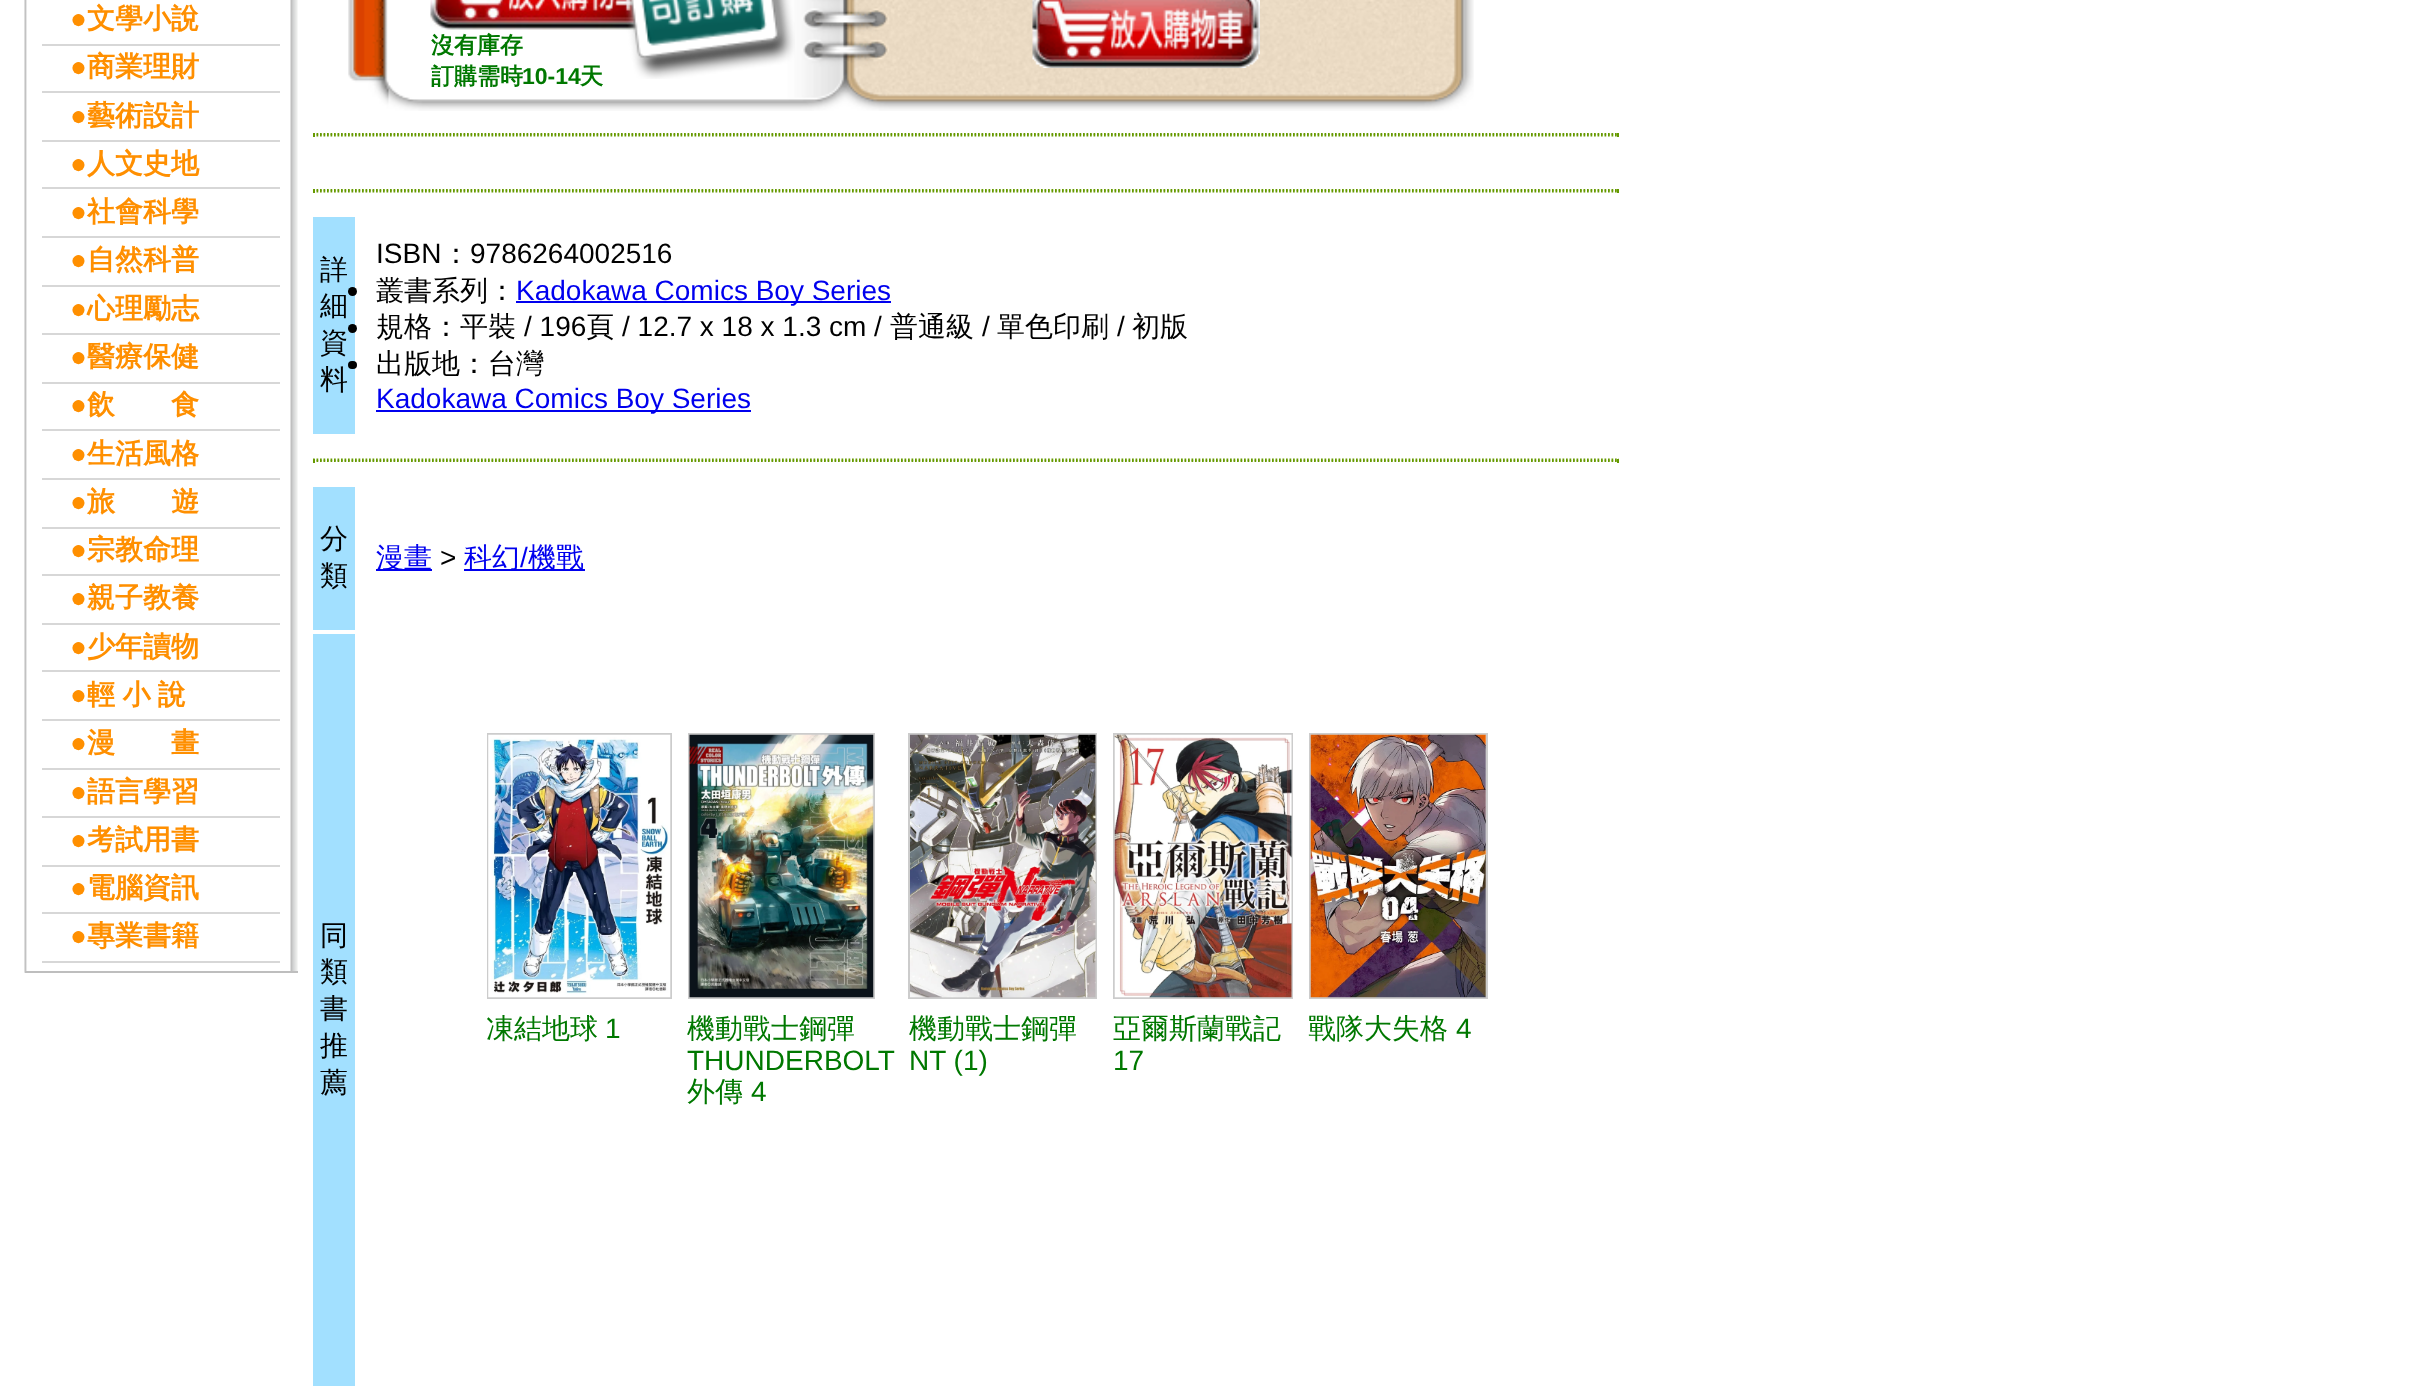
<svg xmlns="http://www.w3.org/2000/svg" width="2435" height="1397">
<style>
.a{font:bold 28px Liberation Sans;fill:#ff8f00}
.b{font:bold 28px WenQuanYi Zen Hei;fill:#ff8f00}
.c{font:bold 23px WenQuanYi Zen Hei;fill:#007800}
.d{font:bold 23px Liberation Sans;fill:#007800}
.e{font:500 28px WenQuanYi Zen Hei;fill:#000}
.f{font:28px Liberation Sans;fill:#000}
.g{font:28px Liberation Sans;fill:#00e}
.h{font:500 28px WenQuanYi Zen Hei;fill:#00e}
.i{font:500 28px WenQuanYi Zen Hei;fill:#007800}
.j{font:28px Liberation Sans;fill:#007800}
</style>
<rect width="100%" height="100%" fill="#fff"/>
<image href="1.png" x="348" y="0" width="1126" height="111"/>
<image href="4.png" x="430" y="0" width="208" height="30"/>
<image href="2.png" x="625" y="0" width="170" height="79"/>
<image href="3.png" x="24" y="0" width="274" height="973"/>
<path fill="#bebebe" d="M25 971h273v2H25z"/>
<path fill="#d7d7d7" d="M42 44h238v2H42z"/>
<path fill="#d7d7d7" d="M42 91h238v2H42z"/>
<path fill="#d7d7d7" d="M42 140h238v2H42z"/>
<path fill="#d7d7d7" d="M42 187h238v2H42z"/>
<path fill="#d7d7d7" d="M42 236h238v2H42z"/>
<path fill="#d7d7d7" d="M42 285h238v2H42z"/>
<path fill="#d7d7d7" d="M42 333h238v2H42z"/>
<path fill="#d7d7d7" d="M42 382h238v2H42z"/>
<path fill="#d7d7d7" d="M42 429h238v2H42z"/>
<path fill="#d7d7d7" d="M42 478h238v2H42z"/>
<path fill="#d7d7d7" d="M42 527h238v2H42z"/>
<path fill="#d7d7d7" d="M42 574h238v2H42z"/>
<path fill="#d7d7d7" d="M42 623h238v2H42z"/>
<path fill="#d7d7d7" d="M42 670h238v2H42z"/>
<path fill="#d7d7d7" d="M42 719h238v2H42z"/>
<path fill="#d7d7d7" d="M42 768h238v2H42z"/>
<path fill="#d7d7d7" d="M42 816h238v2H42z"/>
<path fill="#d7d7d7" d="M42 865h238v2H42z"/>
<path fill="#d7d7d7" d="M42 912h238v2H42z"/>
<path fill="#d7d7d7" d="M42 961h238v2H42z"/>
<image href="5.png" x="1032" y="0" width="228" height="68"/>
<path fill="none" stroke="#690" stroke-width="1.8" stroke-dasharray="1.75 1.75" d="M313 134h1306"/>
<path fill="#690" d="M1617 133h2v4H1617z"/>
<path fill="none" stroke="#690" stroke-width="1.8" stroke-dasharray="1.75 1.75" d="M313 135.5h1306"/>
<path fill="#690" d="M313 133h2v4H313z"/>
<path fill="none" stroke="#690" stroke-width="1.8" stroke-dasharray="1.75 1.75" d="M313 190h1306"/>
<path fill="#690" d="M1617 189h2v4H1617z"/>
<path fill="none" stroke="#690" stroke-width="1.8" stroke-dasharray="1.75 1.75" d="M313 191.5h1306"/>
<path fill="#690" d="M313 189h2v4H313z"/>
<path fill="#a2e0ff" d="M313 217h42v217H313z"/>
<circle fill="#000" cx="352.5" cy="291.5" r="4.5"/>
<path fill="#00e" d="M516 301h375v2H516z"/>
<circle fill="#000" cx="352.5" cy="328.5" r="4.5"/>
<rect fill="#000" x="348" y="361" width="9" height="8" rx="4"/>
<path fill="#00e" d="M376 410h375v2H376z"/>
<path fill="none" stroke="#690" stroke-width="1.8" stroke-dasharray="1.75 1.75" d="M313 459.5h1306"/>
<path fill="#690" d="M1617 459h2v4H1617z"/>
<path fill="none" stroke="#690" stroke-width="1.8" stroke-dasharray="1.75 1.75" d="M313 461h1306"/>
<path fill="#690" d="M313 459h2v4H313z"/>
<path fill="#a2e0ff" d="M313 487h42v143H313z"/>
<path fill="#00e" d="M376 569h56v2H376z"/>
<path fill="#00e" d="M464 569h121v2H464z"/>
<path fill="#a2e0ff" d="M313 634h42v752H313z"/>
<path fill="none" stroke="#ccc" stroke-width="2" d="M488 734h183v264H488z"/>
<image href="6.png" x="488" y="734" width="183" height="264"/>
<path fill="none" stroke="#ccc" stroke-width="2" d="M689 734h185v264H689z"/>
<image href="7.png" x="689" y="734" width="185" height="264"/>
<path fill="none" stroke="#ccc" stroke-width="2" d="M909 734h187v264H909z"/>
<image href="8.png" x="910" y="734" width="186" height="264"/>
<path fill="none" stroke="#ccc" stroke-width="2" d="M1114 734h178v264H1114z"/>
<image href="9.png" x="1114" y="734" width="178" height="264"/>
<path fill="none" stroke="#ccc" stroke-width="2" d="M1310 734h177v264H1310z"/>
<image href="10.png" x="1310" y="734" width="176" height="264"/>
<text class="a" x="70" y="28">●</text>
<text class="b" x="87" y="28">文學小說</text>
<text class="a" x="70" y="76">●</text>
<text class="b" x="87" y="76">商業理財</text>
<text class="a" x="70" y="125">●</text>
<text class="b" x="87" y="125">藝術設計</text>
<text class="a" x="70" y="173">●</text>
<text class="b" x="87" y="173">人文史地</text>
<text class="a" x="70" y="221">●</text>
<text class="b" x="87" y="221">社會科學</text>
<text class="a" x="70" y="269">●</text>
<text class="b" x="87" y="269">自然科普</text>
<text class="a" x="70" y="318">●</text>
<text class="b" x="87" y="318">心理勵志</text>
<text class="a" x="70" y="366">●</text>
<text class="b" x="87" y="366">醫療保健</text>
<text class="a" x="70" y="414">●</text>
<text class="b" x="87" y="414">飲　　食</text>
<text class="a" x="70" y="463">●</text>
<text class="b" x="87" y="463">生活風格</text>
<text class="a" x="70" y="511">●</text>
<text class="b" x="87" y="511">旅　　遊</text>
<text class="a" x="70" y="559">●</text>
<text class="b" x="87" y="559">宗教命理</text>
<text class="a" x="70" y="607">●</text>
<text class="b" x="87" y="607">親子教養</text>
<text class="a" x="70" y="656">●</text>
<text class="b" x="87" y="656">少年讀物</text>
<text class="a" x="70" y="704">●</text>
<text class="b" x="87" y="704" word-spacing="-1">輕 小 說</text>
<text class="a" x="70" y="752">●</text>
<text class="b" x="87" y="752">漫　　畫</text>
<text class="a" x="70" y="801">●</text>
<text class="b" x="87" y="801">語言學習</text>
<text class="a" x="70" y="849">●</text>
<text class="b" x="87" y="849">考試用書</text>
<text class="a" x="70" y="897">●</text>
<text class="b" x="87" y="897">電腦資訊</text>
<text class="a" x="70" y="945">●</text>
<text class="b" x="87" y="945">專業書籍</text>
<text class="c" x="431" y="53">沒有庫存</text>
<text class="c" x="431" y="84">訂購需時</text>
<text class="d" x="522" y="84">10-14</text>
<text class="c" x="580" y="84">天</text>
<text class="e" x="320" y="279">詳</text>
<text class="e" x="320" y="315">細</text>
<text class="e" x="320" y="352">資</text>
<text class="e" x="320" y="389">料</text>
<text class="f" x="376" y="263">ISBN</text>
<text class="e" x="442" y="263">：</text>
<text class="f" x="470" y="263">9786264002516</text>
<text class="e" x="376" y="300">叢書系列：</text>
<text class="g" x="516" y="300">Kadokawa Comics Boy Series</text>
<text class="e" x="376" y="336">規格：平裝</text>
<text class="f" x="524" y="336">/ 196</text>
<text class="e" x="586" y="336">頁</text>
<text class="f" x="622" y="336">/ 12.7 x 18 x 1.3 cm /</text>
<text class="e" x="890" y="336">普通級</text>
<text class="f" x="982" y="336">/</text>
<text class="e" x="997" y="336">單色印刷</text>
<text class="f" x="1117" y="336">/</text>
<text class="e" x="1132" y="336">初版</text>
<text class="e" x="376" y="373">出版地：台灣</text>
<text class="g" x="376" y="408">Kadokawa Comics Boy Series</text>
<text class="e" x="320" y="548">分</text>
<text class="e" x="320" y="585">類</text>
<text class="h" x="376" y="567">漫畫</text>
<text class="f" x="440" y="567">&gt;</text>
<text class="h" x="464" y="567">科幻</text>
<text class="g" x="520" y="567">/</text>
<text class="h" x="528" y="567">機戰</text>
<text class="e" x="320" y="945">同</text>
<text class="e" x="320" y="981">類</text>
<text class="e" x="320" y="1018">書</text>
<text class="e" x="320" y="1055">推</text>
<text class="e" x="320" y="1092">薦</text>
<text class="i" x="486" y="1038">凍結地球</text>
<text class="j" x="605" y="1038">1</text>
<text class="i" x="687" y="1038">機動戰士鋼彈</text>
<text class="j" x="687" y="1070">THUNDERBOLT</text>
<text class="i" x="687" y="1101">外傳</text>
<text class="j" x="751" y="1101">4</text>
<text class="i" x="909" y="1038">機動戰士鋼彈</text>
<text class="j" x="909" y="1070">NT (1)</text>
<text class="i" x="1113" y="1038">亞爾斯蘭戰記</text>
<text class="j" x="1113" y="1070">17</text>
<text class="i" x="1308" y="1038">戰隊大失格</text>
<text class="j" x="1456" y="1038">4</text>
</svg>
